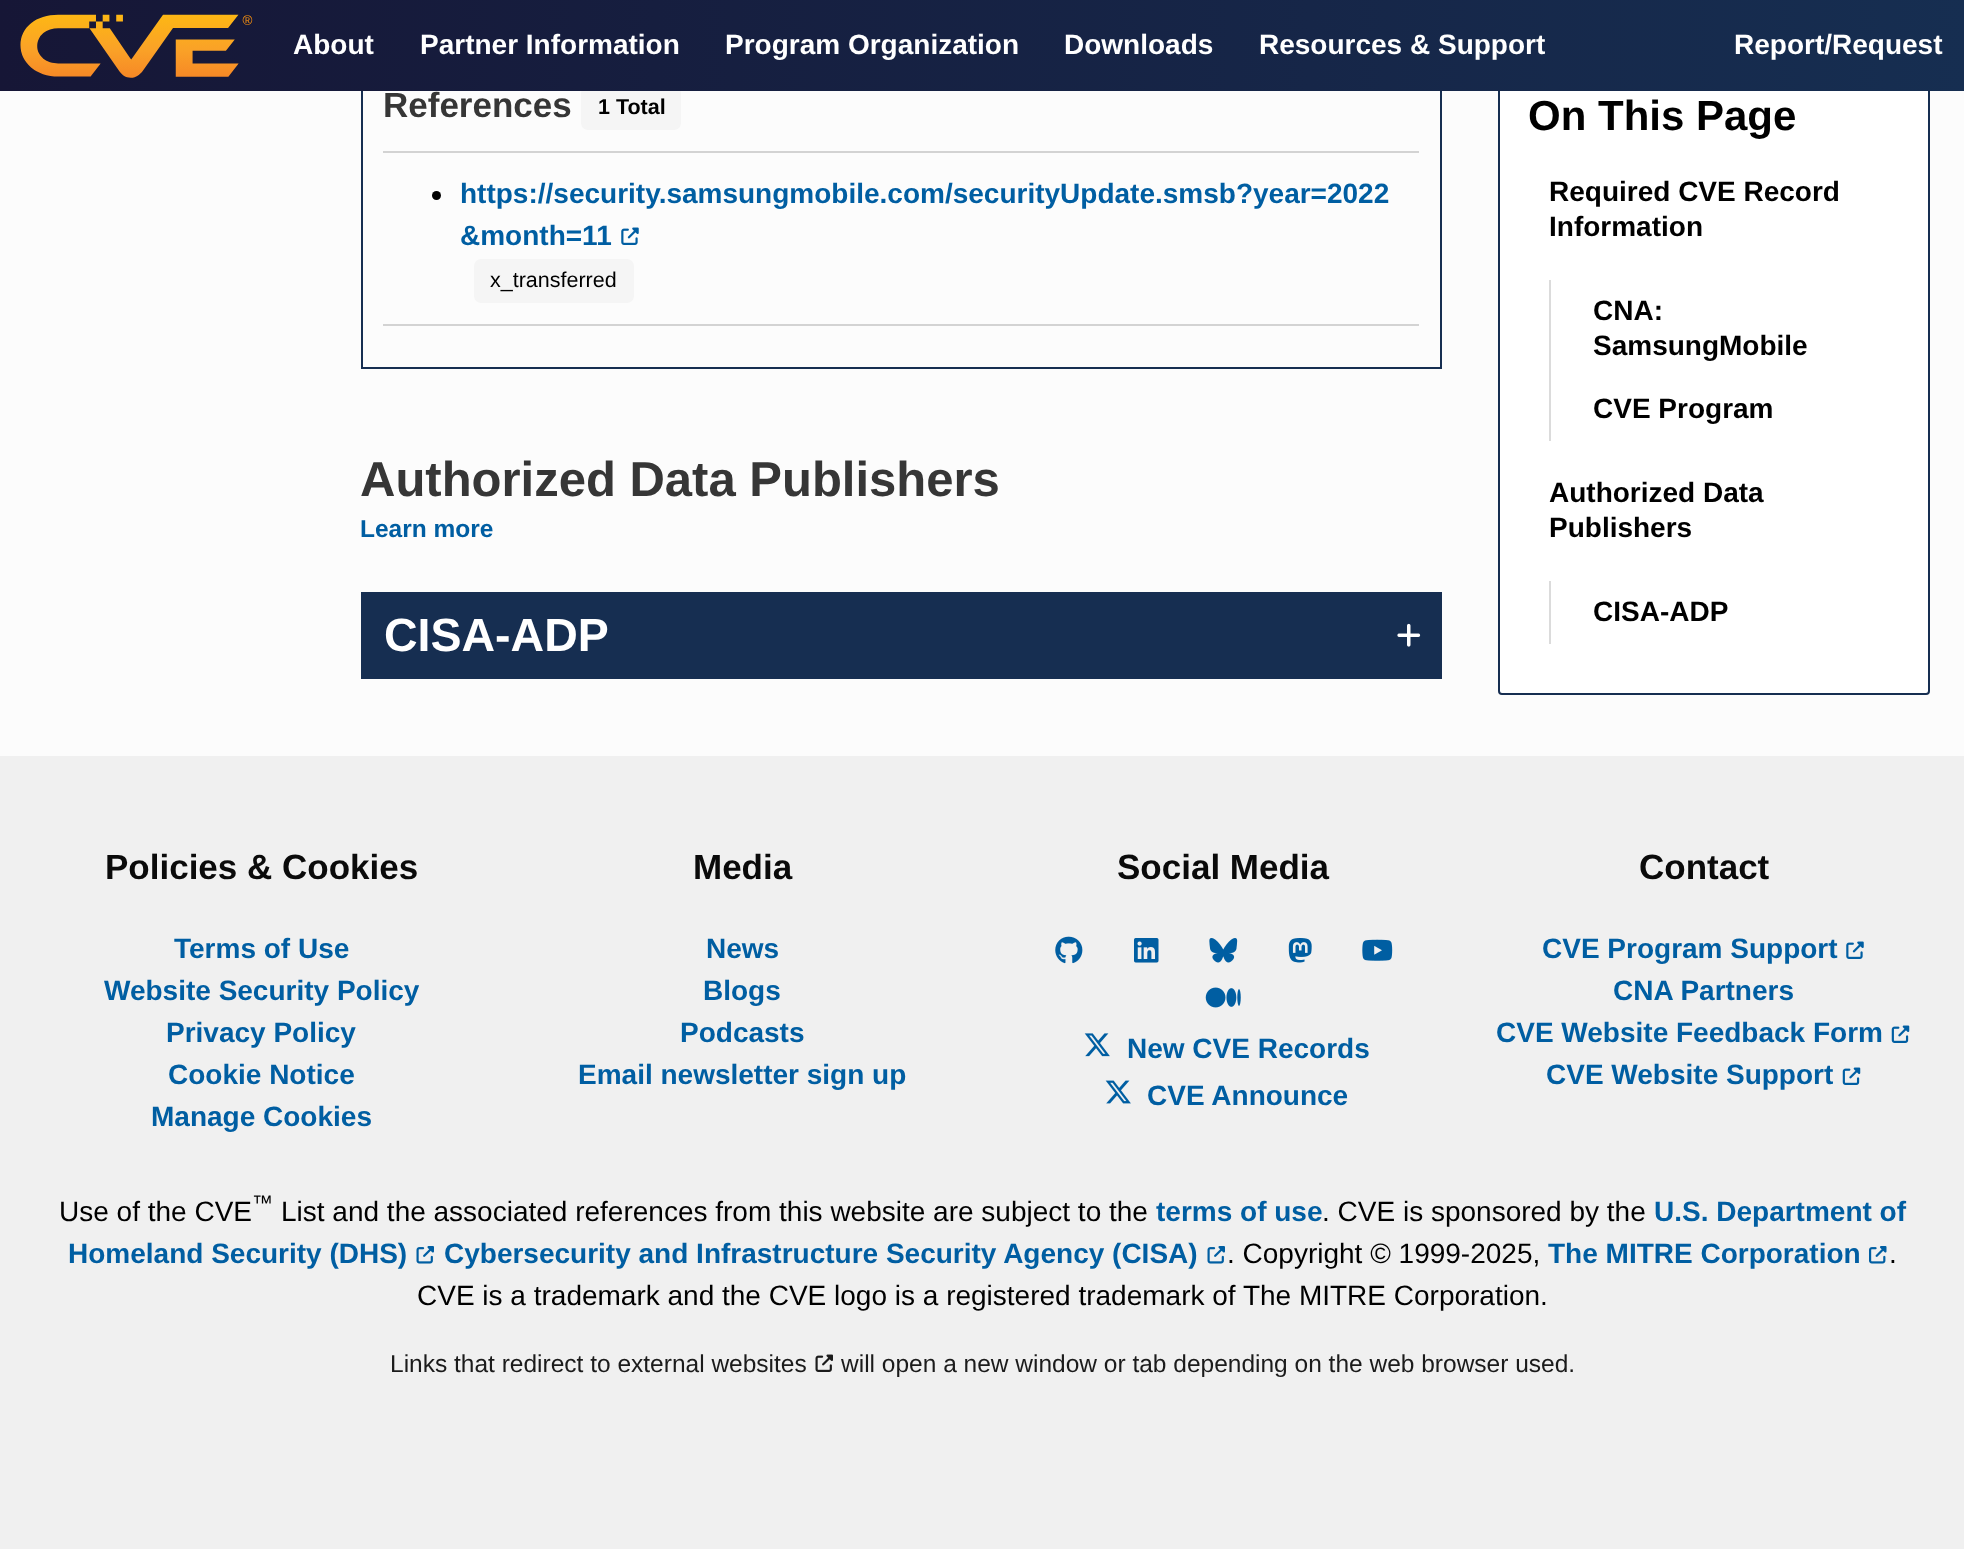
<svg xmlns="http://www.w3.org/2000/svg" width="1964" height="1549">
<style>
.a{font:bold 28px Liberation Sans;fill:#fff}
.b{font:bold 35px Liberation Sans;fill:#363636}
.c{font:bold 21.5px Liberation Sans;fill:#000}
.d{font:bold 28px Liberation Sans;fill:#005ea2}
.e{font:21.5px Liberation Sans;fill:#000}
.f{font:bold 49px Liberation Sans;fill:#363636}
.g{font:bold 24.5px Liberation Sans;fill:#005ea2}
.h{font:bold 46.5px Liberation Sans;fill:#fff}
.i{font:bold 42px Liberation Sans;fill:#000}
.j{font:bold 28px Liberation Sans;fill:#000}
.k{font:bold 35px Liberation Sans;fill:#0a0a0a}
.l{font:28px Liberation Sans;fill:#000}
.m{font:21px Liberation Sans;fill:#000}
.n{font:24.5px Liberation Sans;fill:#1b1b1b}
</style>
<defs>
<linearGradient id="g1" gradientUnits="userSpaceOnUse" x1="0" y1="46" x2="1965" y2="45"><stop offset="0" stop-color="#161636"/><stop offset="1" stop-color="#162e51"/></linearGradient>
</defs>
<rect width="100%" height="100%" fill="#fcfcfc"/>
<path fill="none" stroke="#162e51" stroke-width="2" d="M362 -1h1079v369H362z"/>
<rect fill="#f5f5f5" x="581" y="86" width="100" height="44" rx="7"/>
<rect fill="#fff" stroke="#162e51" stroke-width="2" x="1499" y="55" width="430" height="639" rx="3"/>
<path fill="url(#g1)" d="M0 0h1964v91H0z"/>
<image href="1.png" x="20" y="14" width="233" height="64"/>
<path fill="#d3d3d3" d="M383 151h1036v2H383z"/>
<path fill="#d3d3d3" d="M383 324h1036v2H383z"/>
<circle fill="#000" cx="436.5" cy="195.5" r="4.5"/>
<image href="2.png" x="621" y="227" width="18" height="18"/>
<rect fill="#f5f5f5" x="474" y="259" width="160" height="44" rx="7"/>
<path fill="#162e51" d="M361 592h1081v87H361z"/>
<image href="3.png" x="1397" y="623" width="24" height="24"/>
<path fill="#dbdbdb" d="M1549 280h2v161H1549z"/>
<path fill="#dbdbdb" d="M1549 581h2v63H1549z"/>
<path fill="#f0f0f0" d="M0 756h1964v793H0z"/>
<image href="4.png" x="1055" y="936" width="28" height="28"/>
<image href="5.png" x="1134" y="938" width="25" height="25"/>
<image href="6.png" x="1209" y="938" width="29" height="25"/>
<image href="7.png" x="1288" y="938" width="24" height="25"/>
<image href="8.png" x="1362" y="939" width="31" height="22"/>
<image href="9.png" x="1205" y="987" width="36" height="21"/>
<image href="10.png" x="1084" y="1033" width="26" height="24"/>
<image href="11.png" x="1105" y="1080" width="26" height="24"/>
<image href="12.png" x="1846" y="941" width="18" height="18"/>
<image href="13.png" x="1891" y="1025" width="19" height="18"/>
<image href="13.png" x="1842" y="1067" width="19" height="18"/>
<image href="14.png" x="416" y="1246" width="18" height="18"/>
<image href="14.png" x="1207" y="1246" width="18" height="18"/>
<image href="15.png" x="1869" y="1246" width="18" height="18"/>
<image href="16.png" x="815" y="1354" width="18" height="18"/>
<text class="a" x="293" y="54">About</text>
<text class="a" x="420" y="54">Partner Information</text>
<text class="a" x="725" y="54">Program Organization</text>
<text class="a" x="1064" y="54">Downloads</text>
<text class="a" x="1259" y="54">Resources &amp; Support</text>
<text class="a" x="1734" y="54">Report/Request</text>
<text class="b" x="383" y="117">References</text>
<text class="c" x="598" y="114">1 Total</text>
<text class="d" x="460" y="203">https://security.samsungmobile.com/securityUpdate.smsb?year=2022</text>
<text class="d" x="460" y="245">&amp;month=11</text>
<text class="e" x="490" y="287">x_transferred</text>
<text class="f" x="360" y="496">Authorized Data Publishers</text>
<text class="g" x="360" y="537">Learn more</text>
<text class="h" x="384" y="651">CISA-ADP</text>
<text class="i" x="1528" y="130">On This Page</text>
<text class="j" x="1549" y="201">Required CVE Record</text>
<text class="j" x="1549" y="236">Information</text>
<text class="j" x="1593" y="320">CNA:</text>
<text class="j" x="1593" y="355">SamsungMobile</text>
<text class="j" x="1593" y="418">CVE Program</text>
<text class="j" x="1549" y="502">Authorized Data</text>
<text class="j" x="1549" y="537">Publishers</text>
<text class="j" x="1593" y="621">CISA-ADP</text>
<text class="k" x="105" y="879">Policies &amp; Cookies</text>
<text class="d" x="174" y="958">Terms of Use</text>
<text class="d" x="104" y="1000">Website Security Policy</text>
<text class="d" x="166" y="1042">Privacy Policy</text>
<text class="d" x="168" y="1084">Cookie Notice</text>
<text class="d" x="151" y="1126">Manage Cookies</text>
<text class="k" x="693" y="879">Media</text>
<text class="d" x="706" y="958">News</text>
<text class="d" x="703" y="1000">Blogs</text>
<text class="d" x="680" y="1042">Podcasts</text>
<text class="d" x="578" y="1084">Email newsletter sign up</text>
<text class="k" x="1117" y="879">Social Media</text>
<text class="d" x="1127" y="1058">New CVE Records</text>
<text class="d" x="1147" y="1105">CVE Announce</text>
<text class="k" x="1639" y="879">Contact</text>
<text class="d" x="1542" y="958">CVE Program Support</text>
<text class="d" x="1613" y="1000">CNA Partners</text>
<text class="d" x="1496" y="1042">CVE Website Feedback Form</text>
<text class="d" x="1546" y="1084">CVE Website Support</text>
<text class="l" x="59" y="1221">Use of the CVE</text>
<text class="m" x="252" y="1210">™</text>
<text class="d" x="1654" y="1221">U.S. Department of</text>
<text class="d" x="68" y="1263">Homeland Security (DHS)</text>
<text class="l" x="281" y="1221">List and the associated references from this website are subject to the</text>
<text class="d" x="1156" y="1221">terms of use</text>
<text class="l" x="1322" y="1221">. CVE is sponsored by the</text>
<text class="d" x="444" y="1263">Cybersecurity and Infrastructure Security Agency (CISA)</text>
<text class="l" x="1227" y="1263">. Copyright © 1999-2025,</text>
<text class="d" x="1548" y="1263">The MITRE Corporation</text>
<text class="l" x="1889" y="1263">.</text>
<text class="l" x="417" y="1305">CVE is a trademark and the CVE logo is a registered trademark of The MITRE Corporation.</text>
<text class="n" x="390" y="1372">Links that redirect to external websites</text>
<text class="n" x="841" y="1372">will open a new window or tab depending on the web browser used.</text>
</svg>
